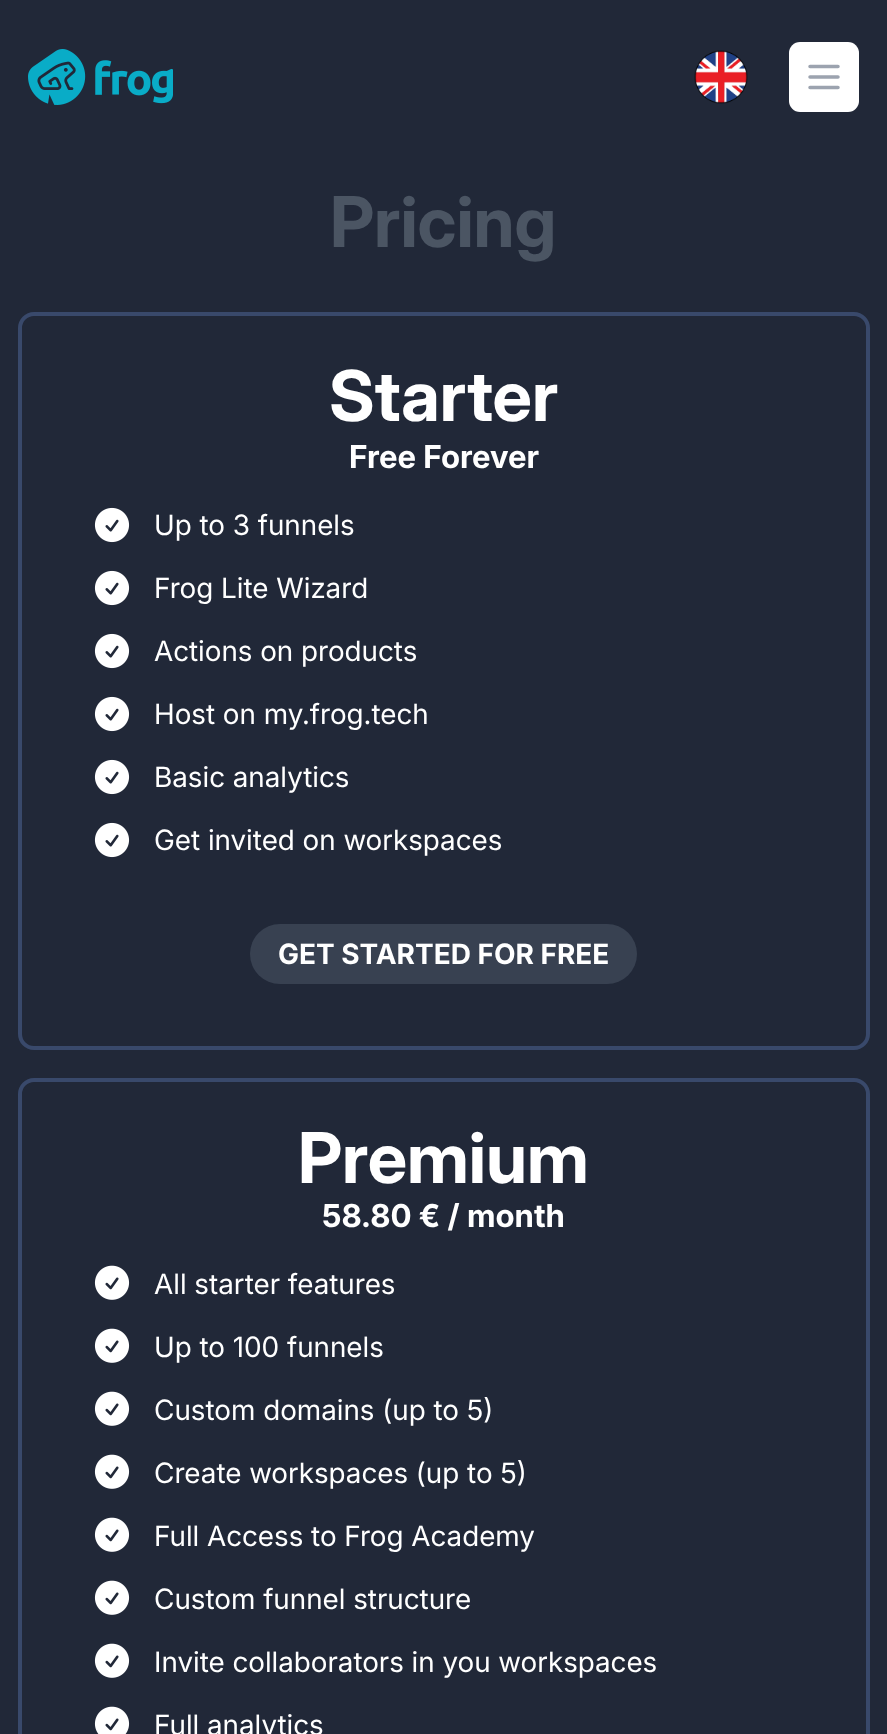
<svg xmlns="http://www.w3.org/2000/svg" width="887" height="1734">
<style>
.a{font:bold 70px Inter;fill:#4b5563}
.b{font:bold 70px Inter;fill:#fff}
.c{font:bold 31.5px 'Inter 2';fill:#fff}
.d{font:28px Inter;fill:#fff}
.e{font:bold 28px 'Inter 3';fill:#fff}
</style>
<rect width="100%" height="100%" fill="#212838"/>
<image href="1.png" x="28" y="49" width="145" height="56"/>
<image href="2.png" x="694" y="50" width="54" height="54"/>
<rect fill="#fff" x="789" y="42" width="70" height="70" rx="11"/>
<path fill="none" stroke="#9ca3af" stroke-width="3.5" stroke-linecap="round" stroke-linejoin="round" d="M810 66.5h28m-28 10.5h28m-28 10.5h28"/>
<rect fill="none" stroke="#39496b" stroke-width="4" x="20" y="314" width="848" height="734" rx="14"/>
<image href="3.png" x="94" y="507" width="36" height="36"/>
<image href="3.png" x="94" y="570" width="36" height="36"/>
<image href="3.png" x="94" y="633" width="36" height="36"/>
<image href="3.png" x="94" y="696" width="36" height="36"/>
<image href="3.png" x="94" y="759" width="36" height="36"/>
<image href="3.png" x="94" y="822" width="36" height="36"/>
<rect fill="#384151" x="250" y="924" width="387" height="60" rx="30"/>
<rect fill="none" stroke="#39496b" stroke-width="4" x="20" y="1080" width="848" height="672" rx="14"/>
<image href="4.png" x="94" y="1265" width="36" height="35"/>
<image href="4.png" x="94" y="1328" width="36" height="35"/>
<image href="4.png" x="94" y="1391" width="36" height="35"/>
<image href="4.png" x="94" y="1454" width="36" height="35"/>
<image href="4.png" x="94" y="1517" width="36" height="35"/>
<image href="4.png" x="94" y="1580" width="36" height="35"/>
<image href="4.png" x="94" y="1643" width="36" height="35"/>
<image href="5.png" x="94" y="1706" width="36" height="28"/>
<text class="a" x="330" y="247">Pricing</text>
<text class="b" x="329" y="421">Starter</text>
<text class="c" x="349" y="468">Free Forever</text>
<text class="d" x="154" y="535">Up to 3 funnels</text>
<text class="d" x="154" y="598">Frog Lite Wizard</text>
<text class="d" x="154" y="661">Actions on products</text>
<text class="d" x="154" y="724">Host on my.frog.tech</text>
<text class="d" x="154" y="787">Basic analytics</text>
<text class="d" x="154" y="850">Get invited on workspaces</text>
<text class="e" x="278" y="964">GET STARTED FOR FREE</text>
<text class="b" x="298" y="1183">Premium</text>
<text class="c" x="322" y="1227">58.80 € / month</text>
<text class="d" x="154" y="1294">All starter features</text>
<text class="d" x="154" y="1357">Up to 100 funnels</text>
<text class="d" x="154" y="1420">Custom domains (up to 5)</text>
<text class="d" x="154" y="1483">Create workspaces (up to 5)</text>
<text class="d" x="154" y="1546">Full Access to Frog Academy</text>
<text class="d" x="154" y="1609">Custom funnel structure</text>
<text class="d" x="154" y="1672">Invite collaborators in you workspaces</text>
<text class="d" x="154" y="1735">Full analytics</text>
</svg>
